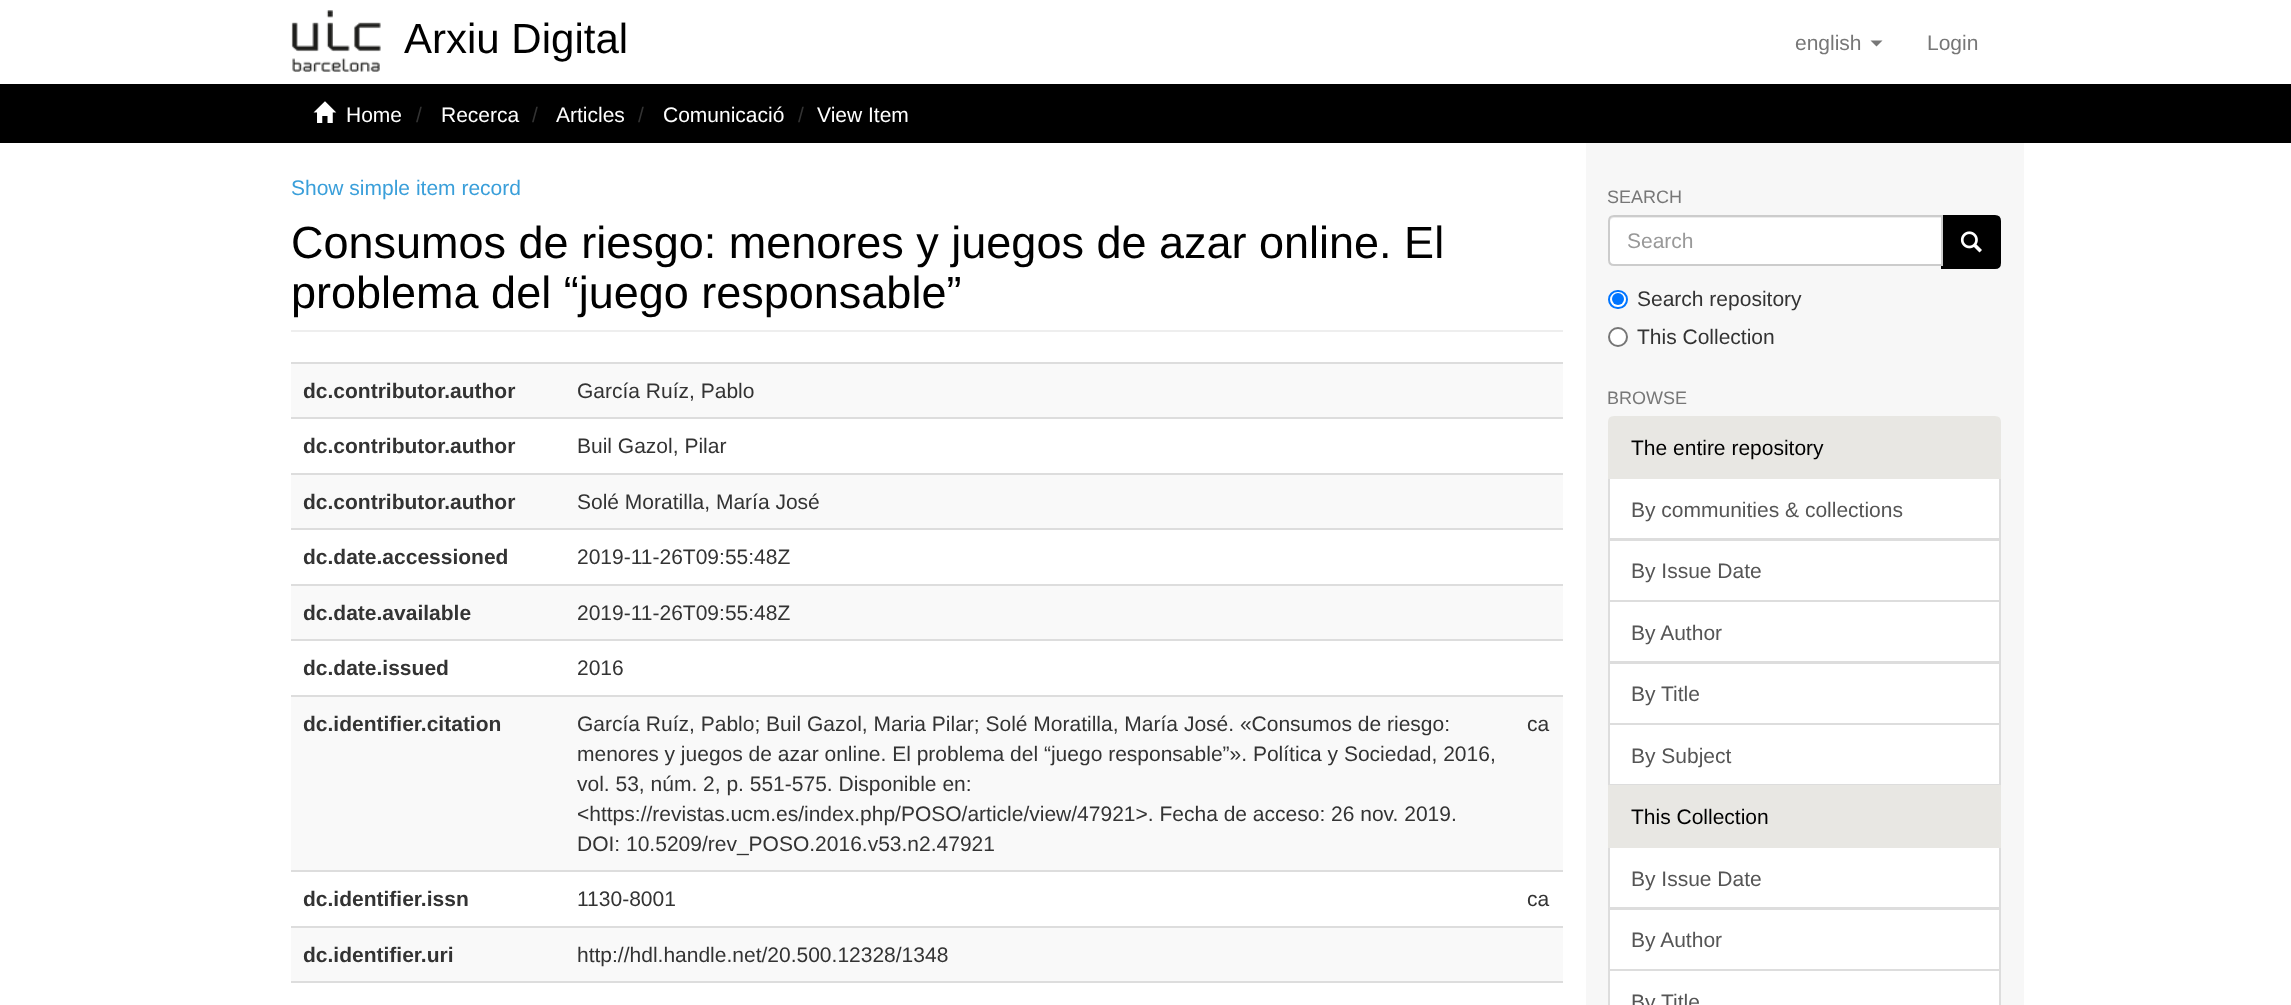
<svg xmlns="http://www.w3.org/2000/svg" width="2291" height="1005">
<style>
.a{font:42px Liberation Sans;fill:#000}
.b{font:21px Liberation Sans;fill:#777}
.c{font:21px Liberation Sans;fill:#fff}
.d{font:21px Liberation Sans;fill:#333}
.e{font:21px Liberation Sans;fill:#3a9fda}
.f{font:45px Liberation Sans;fill:#000}
.g{font:bold 21px Liberation Sans;fill:#333}
.h{font:18px Liberation Sans;fill:#777}
.i{font:21px Liberation Sans;fill:#999}
.j{font:21px Liberation Sans;fill:#000}
.k{font:21px Liberation Sans;fill:#555}
</style>
<rect width="100%" height="100%" fill="#fff"/>
<image href="1.png" x="291" y="10" width="90" height="62"/>
<path fill="#777" d="M1870.5 40.5h12l-6 6z"/>
<path fill="#000" d="M0 84h2291v59H0z"/>
<image href="2.png" x="313" y="101" width="24" height="22"/>
<path fill="#f7f7f7" d="M1586 143h438v862H1586z"/>
<path fill="#eee" d="M291 330h1272v2H291z"/>
<path fill="#f9f9f9" d="M291 364h1272v53H291z"/>
<path fill="#ddd" d="M291 362h1272v2H291z"/>
<path fill="#ddd" d="M291 417h1272v2H291z"/>
<path fill="#f9f9f9" d="M291 475h1272v53H291z"/>
<path fill="#ddd" d="M291 473h1272v2H291z"/>
<path fill="#ddd" d="M291 528h1272v2H291z"/>
<path fill="#f9f9f9" d="M291 586h1272v53H291z"/>
<path fill="#ddd" d="M291 584h1272v2H291z"/>
<path fill="#ddd" d="M291 639h1272v2H291z"/>
<path fill="#f9f9f9" d="M291 697h1272v173H291z"/>
<path fill="#ddd" d="M291 695h1272v2H291z"/>
<path fill="#ddd" d="M291 870h1272v2H291z"/>
<path fill="#f9f9f9" d="M291 928h1272v53H291z"/>
<path fill="#ddd" d="M291 926h1272v2H291z"/>
<path fill="#ddd" d="M291 981h1272v2H291z"/>
<path fill="#000" stroke="#000" stroke-width="2" d="M1942 216h53c3 0 5 2 5 5v42c0 3-2 5-5 5h-53z"/>
<path fill="#fff" d="M1614 215h329v51h-329c-3.5 0-6-2.5-6-6v-39c0-3.5 2.5-6 6-6z"/>
<path fill="#ececec" d="M1614 218h327v-2h-326c-3 0-5 3-5 6c0-2 2-4 4-4z"/>
<path fill="none" stroke="#ccc" stroke-width="2" d="M1614 216h328v49h-328c-3 0-5-2-5-5v-39c0-3 2-5 5-5z"/>
<image href="3.png" x="1960" y="231" width="22" height="22"/>
<rect fill="#fff" stroke="#0075ff" stroke-width="2" x="1609" y="291" width="18" height="17" rx="8.5"/>
<circle fill="#0075ff" cx="1618" cy="299" r="6"/>
<circle fill="#fff" stroke="#767676" stroke-width="2" cx="1618" cy="337" r="9"/>
<path fill="#fff" stroke="#ddd" stroke-width="2" d="M1609 478h391v61H1609z"/>
<path fill="#e8e7e3" stroke="#e8e7e3" stroke-width="2" d="M1614 417h381c3 0 5 2 5 5v56h-391v-56c0-3 2-5 5-5z"/>
<path fill="#fff" stroke="#ddd" stroke-width="2" d="M1609 540h391v61H1609z"/>
<path fill="#fff" stroke="#ddd" stroke-width="2" d="M1609 601h391v61H1609z"/>
<path fill="#fff" stroke="#ddd" stroke-width="2" d="M1609 663h391v61H1609z"/>
<path fill="#fff" stroke="#ddd" stroke-width="2" d="M1609 724h391v61H1609z"/>
<path fill="#fff" stroke="#ddd" stroke-width="2" d="M1609 847h391v61H1609z"/>
<path fill="#e8e7e3" d="M1608 785h393v63H1608z"/>
<path fill="#fff" stroke="#ddd" stroke-width="2" d="M1609 909h391v61H1609z"/>
<path fill="#fff" stroke="#ddd" stroke-width="2" d="M1609 970h391v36H1609z"/>
<text class="a" x="404" y="53">Arxiu Digital</text>
<text class="b" x="1795" y="50">english</text>
<text class="b" x="1927" y="50">Login</text>
<text class="c" x="346" y="122">Home</text>
<text class="d" x="416" y="122">/</text>
<text class="c" x="441" y="122">Recerca</text>
<text class="d" x="532" y="122">/</text>
<text class="c" x="556" y="122">Articles</text>
<text class="d" x="638" y="122">/</text>
<text class="c" x="663" y="122">Comunicació</text>
<text class="d" x="798" y="122">/</text>
<text class="c" x="817" y="122">View Item</text>
<text class="e" x="291" y="195">Show simple item record</text>
<text class="f" x="291" y="258">Consumos de riesgo: menores y juegos de azar online. El</text>
<text class="f" x="291" y="308">problema del “juego responsable”</text>
<text class="g" x="303" y="398">dc.contributor.author</text>
<text class="d" x="577" y="398">García Ruíz, Pablo</text>
<text class="g" x="303" y="453">dc.contributor.author</text>
<text class="d" x="577" y="453">Buil Gazol, Pilar</text>
<text class="g" x="303" y="509">dc.contributor.author</text>
<text class="d" x="577" y="509">Solé Moratilla, María José</text>
<text class="g" x="303" y="564">dc.date.accessioned</text>
<text class="d" x="577" y="564">2019-11-26T09:55:48Z</text>
<text class="g" x="303" y="620">dc.date.available</text>
<text class="d" x="577" y="620">2019-11-26T09:55:48Z</text>
<text class="g" x="303" y="675">dc.date.issued</text>
<text class="d" x="577" y="675">2016</text>
<text class="g" x="303" y="731">dc.identifier.citation</text>
<text class="d" x="577" y="731">García Ruíz, Pablo; Buil Gazol, Maria Pilar; Solé Moratilla, María José. «Consumos de riesgo:</text>
<text class="d" x="577" y="761">menores y juegos de azar online. El problema del “juego responsable”». Política y Sociedad, 2016,</text>
<text class="d" x="577" y="791">vol. 53, núm. 2, p. 551-575. Disponible en:</text>
<text class="d" x="577" y="821">&lt;https://revistas.ucm.es/index.php/POSO/article/view/47921&gt;. Fecha de acceso: 26 nov. 2019.</text>
<text class="d" x="577" y="851">DOI: 10.5209/rev_POSO.2016.v53.n2.47921</text>
<text class="d" x="1527" y="731">ca</text>
<text class="g" x="303" y="906">dc.identifier.issn</text>
<text class="d" x="577" y="906">1130-8001</text>
<text class="d" x="1527" y="906">ca</text>
<text class="g" x="303" y="962">dc.identifier.uri</text>
<text class="d" x="577" y="962">http://hdl.handle.net/20.500.12328/1348</text>
<text class="h" x="1607" y="203">SEARCH</text>
<text class="i" x="1627" y="248">Search</text>
<text class="d" x="1637" y="306">Search repository</text>
<text class="d" x="1637" y="344">This Collection</text>
<text class="h" x="1607" y="404">BROWSE</text>
<text class="j" x="1631" y="455">The entire repository</text>
<text class="k" x="1631" y="517">By communities &amp; collections</text>
<text class="k" x="1631" y="578">By Issue Date</text>
<text class="k" x="1631" y="640">By Author</text>
<text class="k" x="1631" y="701">By Title</text>
<text class="k" x="1631" y="763">By Subject</text>
<text class="j" x="1631" y="824">This Collection</text>
<text class="k" x="1631" y="886">By Issue Date</text>
<text class="k" x="1631" y="947">By Author</text>
<text class="k" x="1631" y="1009">By Title</text>
</svg>
